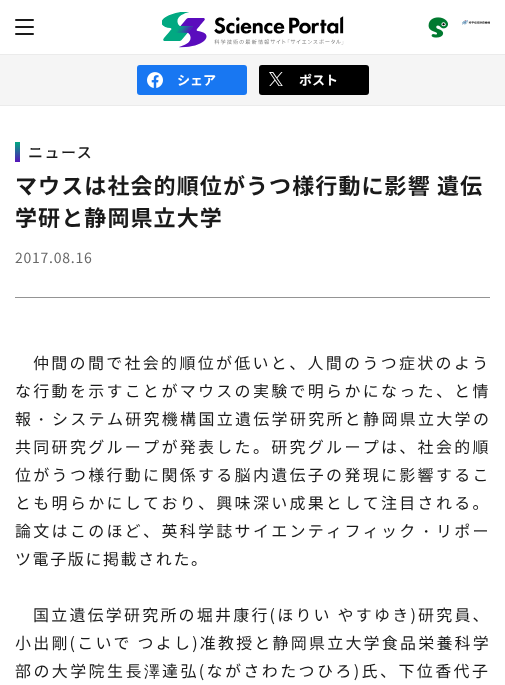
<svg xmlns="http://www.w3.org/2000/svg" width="505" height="685">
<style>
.a{font:bold 13px Noto Sans CJK JP;fill:#fff}
.b{font:500 15px Noto Sans CJK JP;letter-spacing:1.5px;fill:#1a1a1a}
.c{font:bold 22px Noto Sans CJK JP;letter-spacing:1.1px;fill:#1a1a1a}
.d{font:14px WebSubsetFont;letter-spacing:0.75px;fill:#686868}
.e{font:16px WebSubsetFont;letter-spacing:2.3px;fill:#1a1a1a}
.f{font:500 16px WenQuanYi Zen Hei;letter-spacing:2.3px;fill:#1a1a1a}
.g{font:16px WebSubsetFont;letter-spacing:1.6px;fill:#1a1a1a}
.h{font:16px WebSubsetFont;letter-spacing:2.2px;fill:#1a1a1a}
.i{font:16px WebSubsetFont;letter-spacing:2.4px;fill:#1a1a1a}
.j{font:500 16px WenQuanYi Zen Hei;letter-spacing:2.4px;fill:#1a1a1a}
</style>
<defs>
<linearGradient id="g1" gradientUnits="userSpaceOnUse" x1="17" y1="142" x2="18" y2="163"><stop offset="0" stop-color="#01a981"/><stop offset="1" stop-color="#5a0cbd"/></linearGradient>
</defs>
<rect width="100%" height="100%" fill="#fff"/>
<path fill="#ebebeb" d="M0 54h505v1H0z"/>
<rect fill="#1a1a1a" x="15" y="19" width="19" height="2" rx="1"/>
<rect fill="#1a1a1a" x="15" y="26" width="19" height="2" rx="1"/>
<rect fill="#1a1a1a" x="15" y="33" width="19" height="2" rx="1"/>
<image href="1.png" x="162" y="12" width="182" height="36"/>
<image href="2.png" x="428" y="17" width="20" height="21"/>
<image href="3.png" x="462" y="20" width="28" height="5"/>
<path fill="#f5f5f5" d="M0 55h505v50H0z"/>
<path fill="#ebebeb" d="M0 105h505v1H0z"/>
<rect fill="#1877f2" x="137" y="65" width="110" height="30" rx="3"/>
<image href="4.png" x="147" y="72" width="16" height="16"/>
<rect fill="#000" x="259" y="65" width="110" height="30" rx="3"/>
<image href="5.png" x="269" y="72" width="14" height="14"/>
<path fill="#949494" d="M15 297h475v1H15z"/>
<path fill="url(#g1)" d="M15 142h5v20H15z"/>
<text class="a" x="177" y="85">シェア</text>
<text class="a" x="299" y="85">ポスト</text>
<text class="b" x="28" y="158">ニュース</text>
<text class="c" x="15" y="194">マウスは社会的順位がうつ様行動に影響 遺伝</text>
<text class="c" x="15" y="226">学研と静岡県立大学</text>
<text class="d" x="15" y="263">2017.08.16</text>
<text class="e" x="33" y="369">仲間の間で社会的順位が低いと、人間のうつ症状のよう</text>
<text class="e" x="15" y="397">な行動を示すことがマウスの実験で明らかになった、と情</text>
<text class="e" x="15" y="425">報</text>
<text class="f" x="33" y="425">・</text>
<text class="e" x="52" y="425">システム研究機構国立遺伝学研究所と静岡県立大学の</text>
<text class="e" x="15" y="453">共同研究グループが発表した。研究グループは、社会的順</text>
<text class="e" x="15" y="481">位がうつ様行動に関係する脳内遺伝子の発現に影響するこ</text>
<text class="e" x="15" y="509">とも明らかにしており、興味深い成果として注目される。</text>
<text class="e" x="15" y="537">論文はこのほど、英科学誌サイエンティフィック</text>
<text class="f" x="418" y="537">・</text>
<text class="e" x="436" y="537">リポー</text>
<text class="g" x="15" y="565">ツ電子版に掲載された。</text>
<text class="h" x="33" y="621">国立遺伝学研究所の堀井康行(ほりい やすゆき)研究員、</text>
<text class="h" x="15" y="649">小出剛(こいで つよし)准教授と静岡県立大学食品栄養科学</text>
<text class="i" x="15" y="677">部の大学院生長</text>
<text class="j" x="144" y="677">澤</text>
<text class="i" x="162" y="677">達弘(ながさわたつひろ)氏、下位香代子</text>
</svg>
